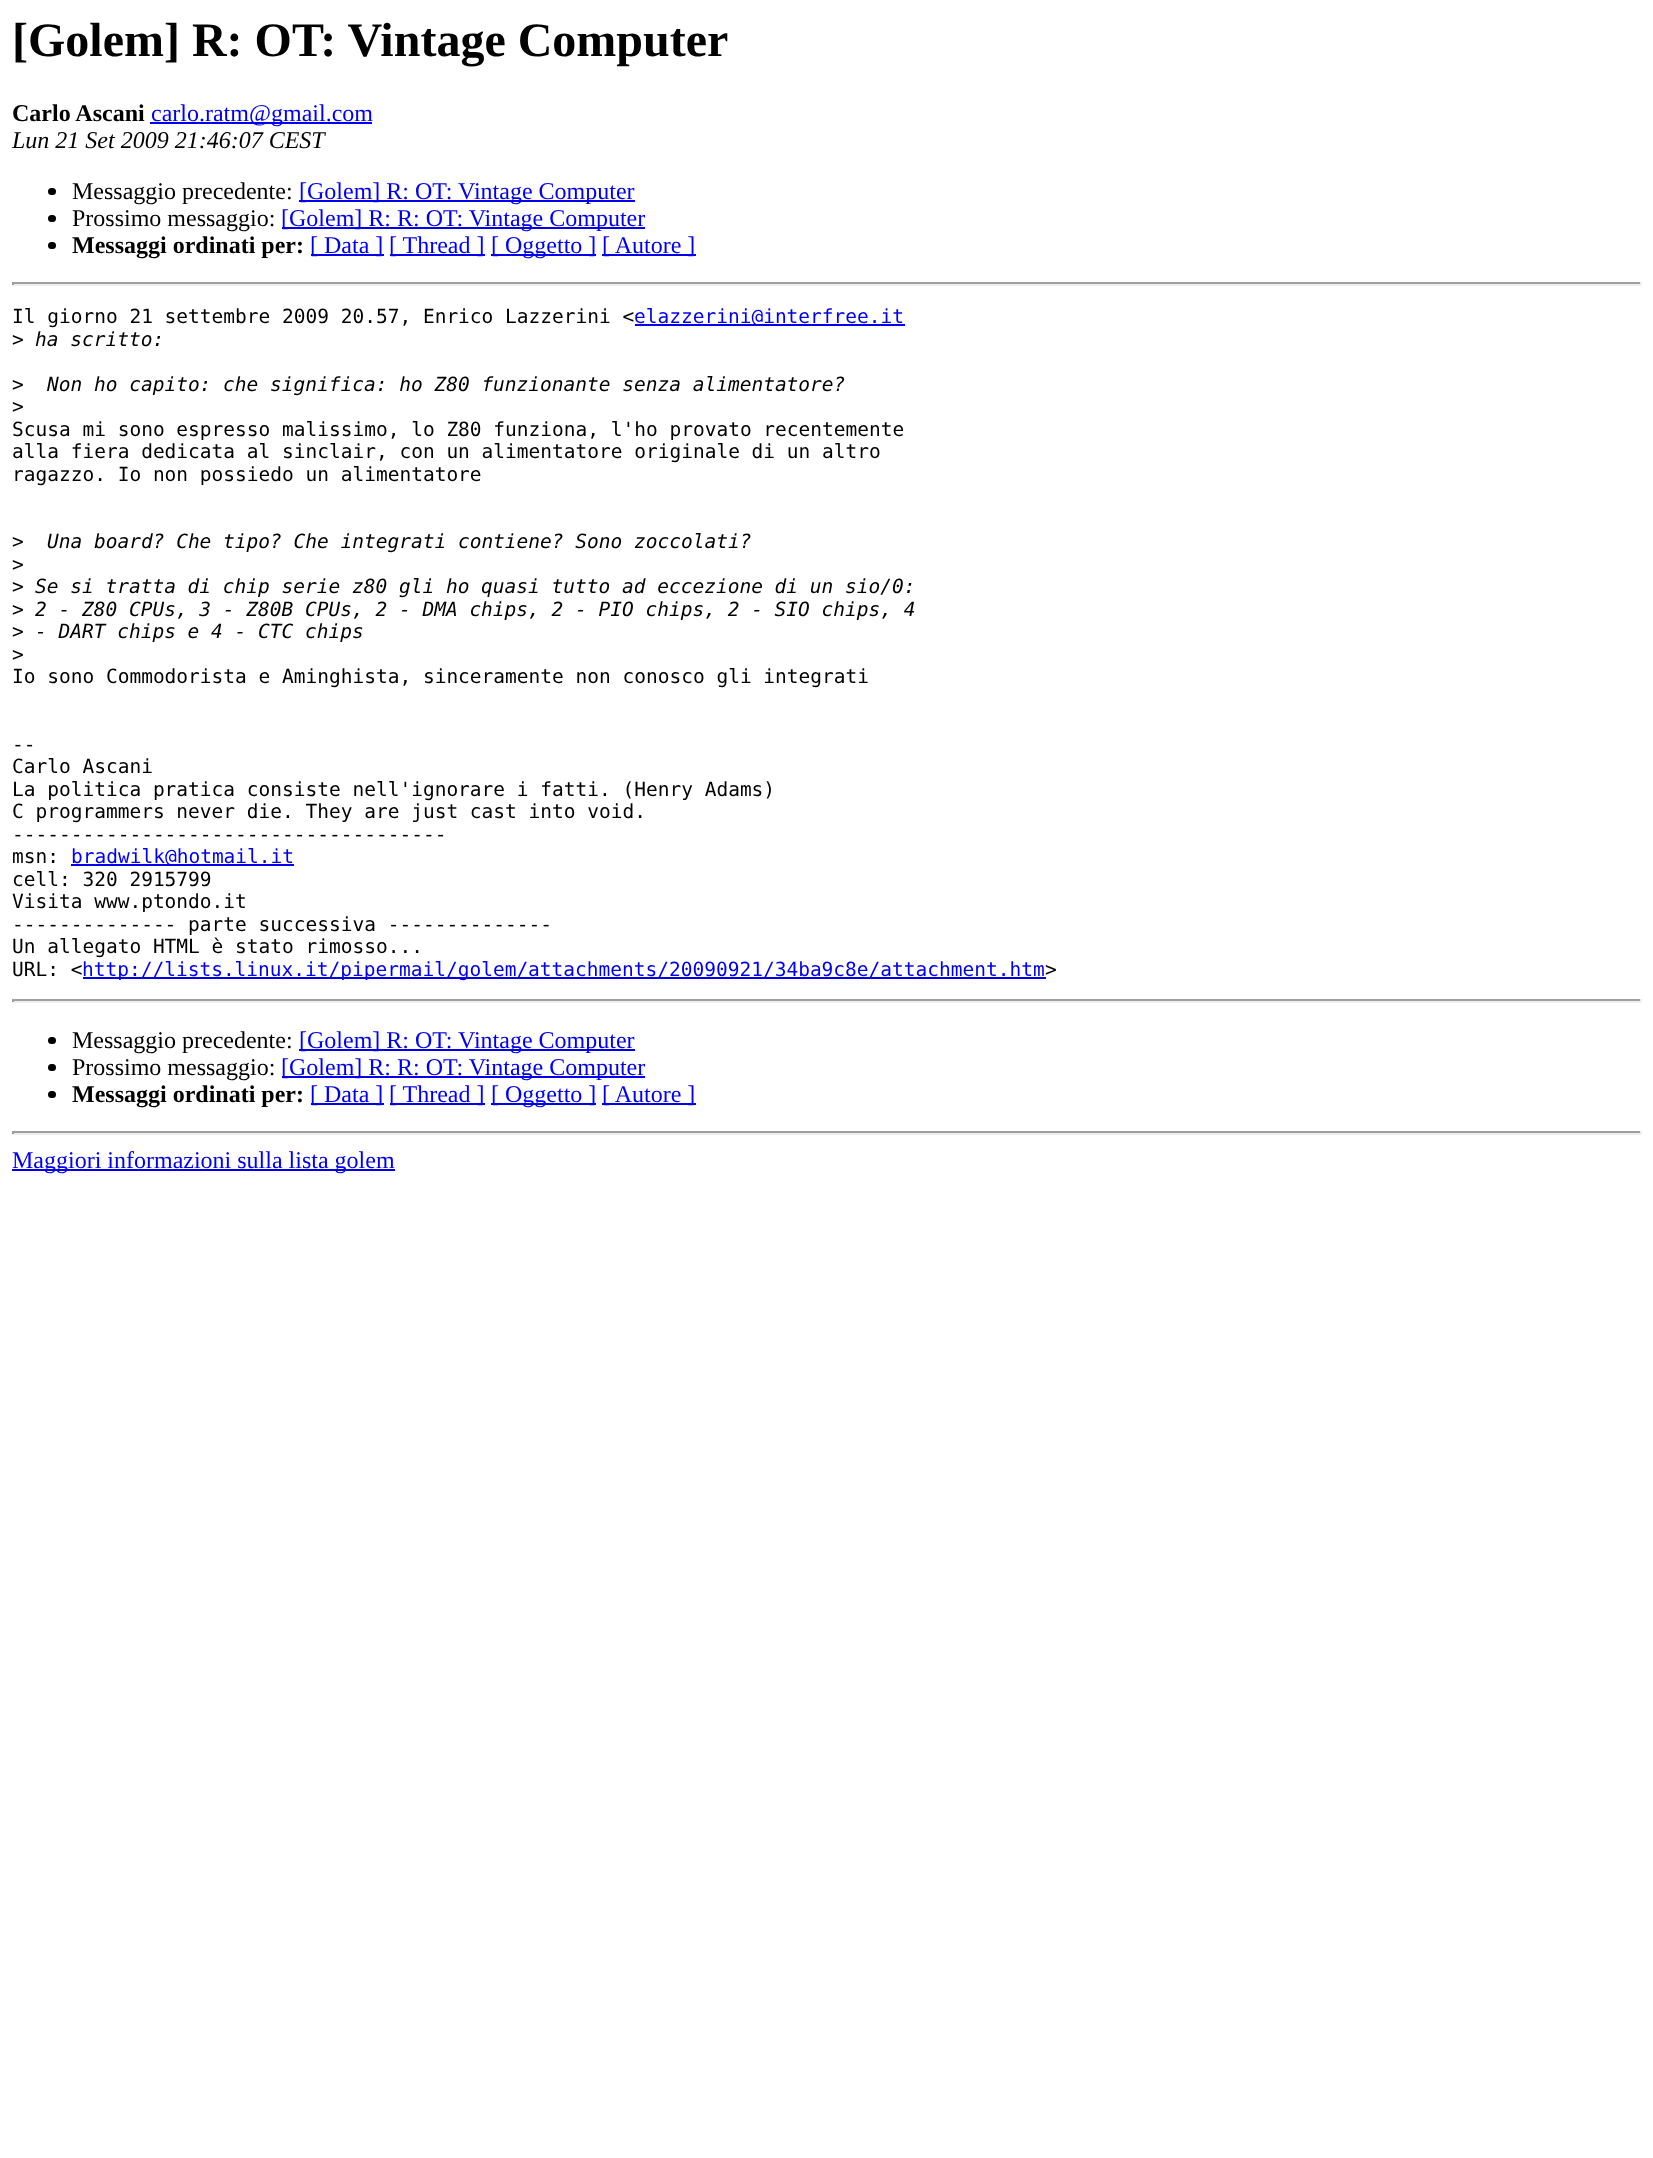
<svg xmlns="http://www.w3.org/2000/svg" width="1653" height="2158">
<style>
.a{font:bold 48px Liberation Serif;fill:#000}
.b{font:bold 24px Liberation Serif;fill:#000}
.c{font:24px Liberation Serif;fill:#00e}
.d{font:italic 24px Liberation Serif;fill:#000}
.e{font:24px Liberation Serif;fill:#000}
.f{font:19.5px DejaVu Sans Mono;fill:#000}
.g{font:19.5px DejaVu Sans Mono;fill:#00e}
.h{font:italic 19.5px DejaVu Sans Mono;fill:#000}
</style>
<rect width="100%" height="100%" fill="#fff"/>
<path fill="#00e" d="M150 122h222v2H150z"/>
<rect fill="#000" x="48" y="188" width="8" height="7" rx="3.5"/>
<path fill="#00e" d="M299 200h336v2H299z"/>
<rect fill="#000" x="48" y="215" width="8" height="7" rx="3.5"/>
<path fill="#00e" d="M282 227h363v2H282z"/>
<rect fill="#000" x="48" y="242" width="8" height="7" rx="3.5"/>
<path fill="#00e" d="M311 254h73v2H311z"/>
<path fill="#00e" d="M390 254h95v2H390z"/>
<path fill="#00e" d="M491 254h105v2H491z"/>
<path fill="#00e" d="M602 254h94v2H602z"/>
<path fill="#9f9f9f" d="M12 282h1629v2H12z"/>
<path fill="#eee" d="M1640 282h2v3H1640z"/>
<path fill="#eee" d="M12 284h1629v2H12z"/>
<path fill="#9f9f9f" d="M12 282h2v3H12z"/>
<path fill="#00e" d="M635 324h270v2H635z"/>
<path fill="#00e" d="M71 864h223v2H71z"/>
<path fill="#00e" d="M83 977h963v2H83z"/>
<path fill="#9f9f9f" d="M12 999h1629v2H12z"/>
<path fill="#eee" d="M1640 999h2v3H1640z"/>
<path fill="#eee" d="M12 1001h1629v2H12z"/>
<path fill="#9f9f9f" d="M12 999h2v3H12z"/>
<rect fill="#000" x="48" y="1037" width="8" height="7" rx="3.5"/>
<path fill="#00e" d="M299 1049h336v2H299z"/>
<rect fill="#000" x="48" y="1064" width="8" height="7" rx="3.5"/>
<path fill="#00e" d="M282 1076h363v2H282z"/>
<rect fill="#000" x="48" y="1091" width="8" height="7" rx="3.5"/>
<path fill="#00e" d="M311 1103h73v2H311z"/>
<path fill="#00e" d="M390 1103h95v2H390z"/>
<path fill="#00e" d="M491 1103h105v2H491z"/>
<path fill="#00e" d="M602 1103h94v2H602z"/>
<path fill="#9f9f9f" d="M12 1131h1629v2H12z"/>
<path fill="#eee" d="M1640 1131h2v3H1640z"/>
<path fill="#eee" d="M12 1133h1629v2H12z"/>
<path fill="#9f9f9f" d="M12 1131h2v3H12z"/>
<path fill="#00e" d="M12 1169h383v2H12z"/>
<text class="a" x="12" y="56">[Golem] R: OT: Vintage Computer</text>
<text class="b" x="12" y="121">Carlo Ascani</text>
<text class="c" x="151" y="121">carlo.ratm@gmail.com</text>
<text class="d" x="12" y="148">Lun 21 Set 2009 21:46:07 CEST</text>
<text class="e" x="72" y="199">Messaggio precedente:</text>
<text class="c" x="299" y="199">[Golem] R: OT: Vintage Computer</text>
<text class="e" x="72" y="226">Prossimo messaggio:</text>
<text class="c" x="281" y="226">[Golem] R: R: OT: Vintage Computer</text>
<text class="b" x="72" y="253">Messaggi ordinati per:</text>
<text class="c" x="310" y="253">[ Data ]</text>
<text class="c" x="389" y="253">[ Thread ]</text>
<text class="c" x="491" y="253">[ Oggetto ]</text>
<text class="c" x="602" y="253">[ Autore ]</text>
<text class="f" x="12" y="323">Il giorno 21 settembre 2009 20.57, Enrico Lazzerini &lt;</text>
<text class="g" x="634" y="323">elazzerini@interfree.it</text>
<text class="f" x="12" y="346">&gt;</text>
<text class="h" x="35" y="346">ha scritto:</text>
<text class="f" x="12" y="391">&gt;</text>
<text class="h" x="47" y="391">Non ho capito: che significa: ho Z80 funzionante senza alimentatore?</text>
<text class="f" x="12" y="413">&gt;</text>
<text class="f" x="12" y="436">Scusa mi sono espresso malissimo, lo Z80 funziona, l'ho provato recentemente</text>
<text class="f" x="12" y="458">alla fiera dedicata al sinclair, con un alimentatore originale di un altro</text>
<text class="f" x="12" y="481">ragazzo. Io non possiedo un alimentatore</text>
<text class="f" x="12" y="548">&gt;</text>
<text class="h" x="47" y="548">Una board? Che tipo? Che integrati contiene? Sono zoccolati?</text>
<text class="f" x="12" y="571">&gt;</text>
<text class="f" x="12" y="593">&gt;</text>
<text class="h" x="35" y="593">Se si tratta di chip serie z80 gli ho quasi tutto ad eccezione di un sio/0:</text>
<text class="f" x="12" y="616">&gt;</text>
<text class="h" x="35" y="616">2 - Z80 CPUs, 3 - Z80B CPUs, 2 - DMA chips, 2 - PIO chips, 2 - SIO chips, 4</text>
<text class="f" x="12" y="638">&gt;</text>
<text class="h" x="35" y="638">- DART chips e 4 - CTC chips</text>
<text class="f" x="12" y="661">&gt;</text>
<text class="f" x="12" y="683">Io sono Commodorista e Aminghista, sinceramente non conosco gli integrati</text>
<text class="f" x="12" y="751">--</text>
<text class="f" x="12" y="773">Carlo Ascani</text>
<text class="f" x="12" y="796">La politica pratica consiste nell'ignorare i fatti. (Henry Adams)</text>
<text class="f" x="12" y="818">C programmers never die. They are just cast into void.</text>
<text class="f" x="12" y="841">-------------------------------------</text>
<text class="f" x="12" y="863">msn:</text>
<text class="g" x="71" y="863">bradwilk@hotmail.it</text>
<text class="f" x="12" y="886">cell: 320 2915799</text>
<text class="f" x="12" y="908">Visita www.ptondo.it</text>
<text class="f" x="12" y="931">-------------- parte successiva --------------</text>
<text class="f" x="12" y="953">Un allegato HTML è stato rimosso...</text>
<text class="f" x="12" y="976">URL: &lt;</text>
<text class="g" x="82" y="976">http://lists.linux.it/pipermail/golem/attachments/20090921/34ba9c8e/attachment.htm</text>
<text class="f" x="1045" y="976">&gt;</text>
<text class="e" x="72" y="1048">Messaggio precedente:</text>
<text class="c" x="299" y="1048">[Golem] R: OT: Vintage Computer</text>
<text class="e" x="72" y="1075">Prossimo messaggio:</text>
<text class="c" x="281" y="1075">[Golem] R: R: OT: Vintage Computer</text>
<text class="b" x="72" y="1102">Messaggi ordinati per:</text>
<text class="c" x="310" y="1102">[ Data ]</text>
<text class="c" x="389" y="1102">[ Thread ]</text>
<text class="c" x="491" y="1102">[ Oggetto ]</text>
<text class="c" x="602" y="1102">[ Autore ]</text>
<text class="c" x="12" y="1168">Maggiori informazioni sulla lista golem</text>
</svg>
